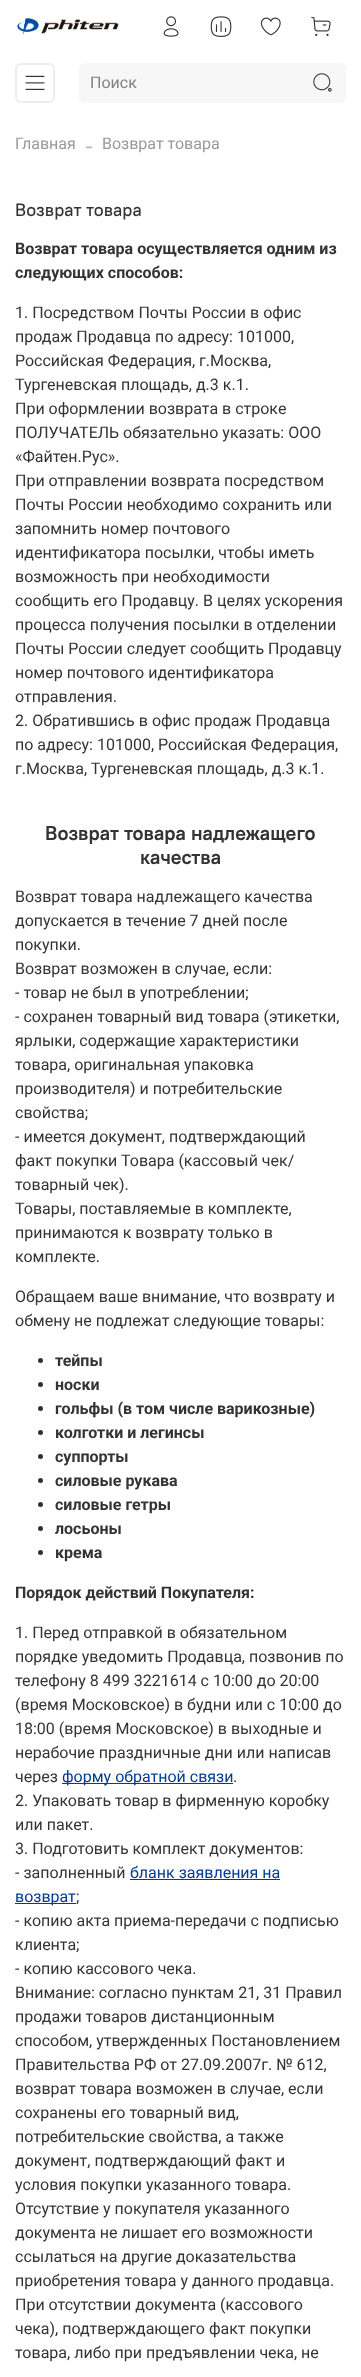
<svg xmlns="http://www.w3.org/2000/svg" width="361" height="2377">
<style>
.a{font:16px Roboto;fill:#808080}
.b{font:16px Roboto;fill:#999}
.c{font:24px Liberation Serif;fill:#b8b8b8}
.d{font:500 18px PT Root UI;fill:#333}
.e{font:bold 16px Roboto;fill:#333}
.f{font:16px Roboto;fill:#333}
.g{font:bold 20px PT Root UI;fill:#333}
.h{font:16px Roboto;fill:#003c96}
</style>
<rect width="100%" height="100%" fill="#fff"/>
<image href="1.png" x="17" y="18" width="102" height="17"/>
<image href="2.png" x="163" y="16" width="16" height="21"/>
<image href="3.png" x="210" y="16" width="22" height="21"/>
<image href="4.png" x="260" y="17" width="21" height="19"/>
<image href="5.png" x="311" y="16" width="20" height="20"/>
<rect fill="none" stroke="#ededed" stroke-width="2" x="16" y="64" width="38" height="38" rx="5"/>
<image href="6.png" x="25" y="75" width="20" height="15"/>
<rect fill="#f7f7f7" x="79" y="63" width="267" height="40" rx="6"/>
<image href="7.png" x="313" y="73" width="19" height="19"/>
<circle fill="#333" cx="40.5" cy="1360.5" r="2.5"/>
<circle fill="#333" cx="40.5" cy="1384.5" r="2.5"/>
<circle fill="#333" cx="40.5" cy="1408.5" r="2.5"/>
<circle fill="#333" cx="40.5" cy="1432.5" r="2.5"/>
<circle fill="#333" cx="40.5" cy="1456.5" r="2.5"/>
<circle fill="#333" cx="40.5" cy="1480.5" r="2.5"/>
<circle fill="#333" cx="40.5" cy="1504.5" r="2.5"/>
<circle fill="#333" cx="40.5" cy="1528.5" r="2.5"/>
<circle fill="#333" cx="40.5" cy="1552.5" r="2.5"/>
<path fill="#003c96" d="M62 1783h171v1H62z"/>
<path fill="#003c96" d="M130 1879h150v1H130z"/>
<path fill="#003c96" d="M15 1903h61v1H15z"/>
<text class="a" x="90" y="88">Поиск</text>
<text class="b" x="15" y="149">Главная</text>
<text class="c" x="85" y="153">-</text>
<text class="b" x="102" y="149">Возврат товара</text>
<text class="d" x="15" y="216">Возврат товара</text>
<text class="e" x="15" y="254">Возврат товара осуществляется одним из</text>
<text class="e" x="15" y="278">следующих способов:</text>
<text class="f" x="15" y="318">1. Посредством Почты России в офис</text>
<text class="f" x="15" y="342">продаж Продавца по адресу: 101000,</text>
<text class="f" x="15" y="366">Российская Федерация, г.Москва,</text>
<text class="f" x="15" y="390">Тургеневская площадь, д.3 к.1.</text>
<text class="f" x="15" y="414">При оформлении возврата в строке</text>
<text class="f" x="15" y="438">ПОЛУЧАТЕЛЬ обязательно указать: ООО</text>
<text class="f" x="15" y="462">«Файтен.Рус».</text>
<text class="f" x="15" y="486">При отправлении возврата посредством</text>
<text class="f" x="15" y="510">Почты России необходимо сохранить или</text>
<text class="f" x="15" y="534">запомнить номер почтового</text>
<text class="f" x="15" y="558">идентификатора посылки, чтобы иметь</text>
<text class="f" x="15" y="582">возможность при необходимости</text>
<text class="f" x="15" y="606">сообщить его Продавцу. В целях ускорения</text>
<text class="f" x="15" y="630">процесса получения посылки в отделении</text>
<text class="f" x="15" y="654">Почты России следует сообщить Продавцу</text>
<text class="f" x="15" y="678">номер почтового идентификатора</text>
<text class="f" x="15" y="702">отправления.</text>
<text class="f" x="15" y="726">2. Обратившись в офис продаж Продавца</text>
<text class="f" x="15" y="750">по адресу: 101000, Российская Федерация,</text>
<text class="f" x="15" y="774">г.Москва, Тургеневская площадь, д.3 к.1.</text>
<text class="g" x="45" y="840">Возврат товара надлежащего</text>
<text class="g" x="140" y="864">качества</text>
<text class="f" x="15" y="902">Возврат товара надлежащего качества</text>
<text class="f" x="15" y="926">допускается в течение 7 дней после</text>
<text class="f" x="15" y="950">покупки.</text>
<text class="f" x="15" y="974">Возврат возможен в случае, если:</text>
<text class="f" x="15" y="998">- товар не был в употреблении;</text>
<text class="f" x="15" y="1022">- сохранен товарный вид товара (этикетки,</text>
<text class="f" x="15" y="1046">ярлыки, содержащие характеристики</text>
<text class="f" x="15" y="1070">товара, оригинальная упаковка</text>
<text class="f" x="15" y="1094">производителя) и потребительские</text>
<text class="f" x="15" y="1118">свойства;</text>
<text class="f" x="15" y="1142">- имеется документ, подтверждающий</text>
<text class="f" x="15" y="1166">факт покупки Товара (кассовый чек/</text>
<text class="f" x="15" y="1190">товарный чек).</text>
<text class="f" x="15" y="1214">Товары, поставляемые в комплекте,</text>
<text class="f" x="15" y="1238">принимаются к возврату только в</text>
<text class="f" x="15" y="1262">комплекте.</text>
<text class="f" x="15" y="1302">Обращаем ваше внимание, что возврату и</text>
<text class="f" x="15" y="1326">обмену не подлежат следующие товары:</text>
<text class="e" x="55" y="1366">тейпы</text>
<text class="e" x="55" y="1390">носки</text>
<text class="e" x="55" y="1414">гольфы (в том числе варикозные)</text>
<text class="e" x="55" y="1438">колготки и легинсы</text>
<text class="e" x="55" y="1462">суппорты</text>
<text class="e" x="55" y="1486">силовые рукава</text>
<text class="e" x="55" y="1510">силовые гетры</text>
<text class="e" x="55" y="1534">лосьоны</text>
<text class="e" x="55" y="1558">крема</text>
<text class="e" x="15" y="1598">Порядок действий Покупателя:</text>
<text class="f" x="15" y="1638">1. Перед отправкой в обязательном</text>
<text class="f" x="15" y="1662">порядке уведомить Продавца, позвонив по</text>
<text class="f" x="15" y="1686">телефону 8 499 3221614 с 10:00 до 20:00</text>
<text class="f" x="15" y="1710">(время Московское) в будни или с 10:00 до</text>
<text class="f" x="15" y="1734">18:00 (время Московское) в выходные и</text>
<text class="f" x="15" y="1758">нерабочие праздничные дни или написав</text>
<text class="f" x="15" y="1782">через</text>
<text class="h" x="62" y="1782">форму обратной связи</text>
<text class="f" x="233" y="1782">.</text>
<text class="f" x="15" y="1806">2. Упаковать товар в фирменную коробку</text>
<text class="f" x="15" y="1830">или пакет.</text>
<text class="f" x="15" y="1854">3. Подготовить комплект документов:</text>
<text class="f" x="15" y="1878">- заполненный</text>
<text class="h" x="130" y="1878">бланк заявления на</text>
<text class="h" x="15" y="1902">возврат</text>
<text class="f" x="76" y="1902">;</text>
<text class="f" x="15" y="1926">- копию акта приема-передачи с подписью</text>
<text class="f" x="15" y="1950">клиента;</text>
<text class="f" x="15" y="1974">- копию кассового чека.</text>
<text class="f" x="15" y="1998">Внимание: согласно пунктам 21, 31 Правил</text>
<text class="f" x="15" y="2022">продажи товаров дистанционным</text>
<text class="f" x="15" y="2046">способом, утвержденных Постановлением</text>
<text class="f" x="15" y="2070">Правительства РФ от 27.09.2007г. № 612,</text>
<text class="f" x="15" y="2094">возврат товара возможен в случае, если</text>
<text class="f" x="15" y="2118">сохранены его товарный вид,</text>
<text class="f" x="15" y="2142">потребительские свойства, а также</text>
<text class="f" x="15" y="2166">документ, подтверждающий факт и</text>
<text class="f" x="15" y="2190">условия покупки указанного товара.</text>
<text class="f" x="15" y="2214">Отсутствие у покупателя указанного</text>
<text class="f" x="15" y="2238">документа не лишает его возможности</text>
<text class="f" x="15" y="2262">ссылаться на другие доказательства</text>
<text class="f" x="15" y="2286">приобретения товара у данного продавца.</text>
<text class="f" x="15" y="2310">При отсутствии документа (кассового</text>
<text class="f" x="15" y="2334">чека), подтверждающего факт покупки</text>
<text class="f" x="15" y="2358">товара, либо при предъявлении чека, не</text>
</svg>
